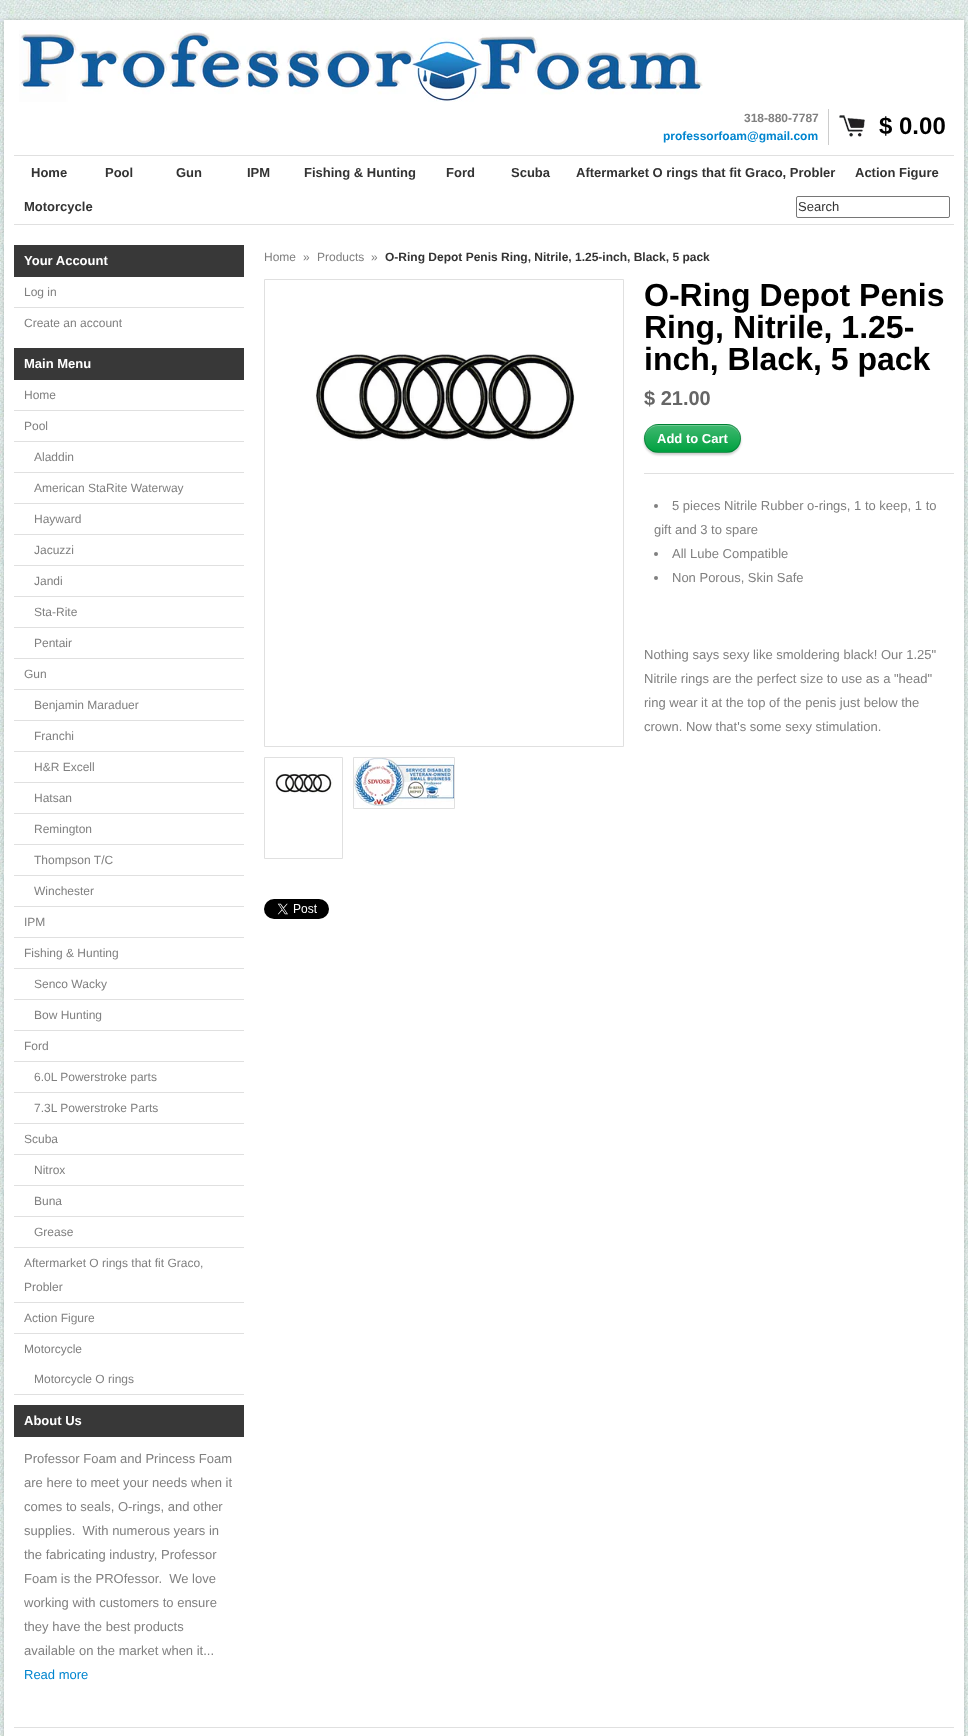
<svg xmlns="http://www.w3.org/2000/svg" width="968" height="1736">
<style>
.a{font:bold 12px Liberation Sans;fill:#808080}
.b{font:bold 12px Liberation Sans;fill:#0085cf}
.c{font:bold 24px Liberation Sans;fill:#000}
.d{font:bold 13px Liberation Sans;fill:#333}
.e{font:13px Liberation Sans;fill:#333}
.f{font:bold 13px Liberation Sans;fill:#fff}
.g{font:12px Liberation Sans;fill:#808080}
.h{font:13px Liberation Sans;fill:#808080}
.i{font:13px Liberation Sans;fill:#0085cf}
.j{font:bold 12px Liberation Sans;fill:#333}
.k{font:bold 32px Liberation Sans;fill:#000}
.l{font:bold 20px Liberation Sans;fill:#666}
</style>
<defs>
<clipPath id="clip1"><rect x="644" y="424" width="97" height="29" rx="14.5"/></clipPath>
<linearGradient id="g1" gradientUnits="userSpaceOnUse" x1="645" y1="452" x2="645" y2="425"><stop offset="0" stop-color="#fff" stop-opacity="0"/><stop offset="1" stop-color="#fff" stop-opacity="0.25"/></linearGradient>
<linearGradient id="g2" gradientUnits="userSpaceOnUse" x1="645" y1="479" x2="645" y2="452"><stop offset="0" stop-color="#fff" stop-opacity="0"/><stop offset="1" stop-color="#fff" stop-opacity="0.25"/></linearGradient>
</defs>
<rect width="100%" height="100%" fill="#fff"/>
<image href="1.png" x="0" y="0" width="968" height="1736"/>
<path fill="#00000033" filter="blur(2px)" d="M4 20h960v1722H4z"/>
<path fill="#fff" d="M4 20h960v1716H4z"/>
<image href="2.png" x="19" y="30" width="684" height="72"/>
<path fill="#ccc" d="M828 109h1v36H828z"/>
<image href="3.png" x="839" y="115" width="26" height="22"/>
<path fill="#e0e0e0" d="M14 155h940v1H14z"/>
<path fill="#e0e0e0" d="M14 224h940v1H14z"/>
<rect fill="none" stroke="#767676" x="796.5" y="196.5" width="153" height="21" rx="1.5"/>
<path fill="#383838" d="M14 245h230v32H14z"/>
<path fill="#e0e0e0" d="M14 307h230v1H14z"/>
<path fill="#383838" d="M14 348h230v32H14z"/>
<path fill="#e0e0e0" d="M14 410h230v1H14z"/>
<path fill="#e0e0e0" d="M14 441h230v1H14z"/>
<path fill="#e0e0e0" d="M14 472h230v1H14z"/>
<path fill="#e0e0e0" d="M14 503h230v1H14z"/>
<path fill="#e0e0e0" d="M14 534h230v1H14z"/>
<path fill="#e0e0e0" d="M14 565h230v1H14z"/>
<path fill="#e0e0e0" d="M14 596h230v1H14z"/>
<path fill="#e0e0e0" d="M14 627h230v1H14z"/>
<path fill="#e0e0e0" d="M14 658h230v1H14z"/>
<path fill="#e0e0e0" d="M14 689h230v1H14z"/>
<path fill="#e0e0e0" d="M14 720h230v1H14z"/>
<path fill="#e0e0e0" d="M14 751h230v1H14z"/>
<path fill="#e0e0e0" d="M14 782h230v1H14z"/>
<path fill="#e0e0e0" d="M14 813h230v1H14z"/>
<path fill="#e0e0e0" d="M14 844h230v1H14z"/>
<path fill="#e0e0e0" d="M14 875h230v1H14z"/>
<path fill="#e0e0e0" d="M14 906h230v1H14z"/>
<path fill="#e0e0e0" d="M14 937h230v1H14z"/>
<path fill="#e0e0e0" d="M14 968h230v1H14z"/>
<path fill="#e0e0e0" d="M14 999h230v1H14z"/>
<path fill="#e0e0e0" d="M14 1030h230v1H14z"/>
<path fill="#e0e0e0" d="M14 1061h230v1H14z"/>
<path fill="#e0e0e0" d="M14 1092h230v1H14z"/>
<path fill="#e0e0e0" d="M14 1123h230v1H14z"/>
<path fill="#e0e0e0" d="M14 1154h230v1H14z"/>
<path fill="#e0e0e0" d="M14 1185h230v1H14z"/>
<path fill="#e0e0e0" d="M14 1216h230v1H14z"/>
<path fill="#e0e0e0" d="M14 1247h230v1H14z"/>
<path fill="#e0e0e0" d="M14 1302h230v1H14z"/>
<path fill="#e0e0e0" d="M14 1333h230v1H14z"/>
<path fill="#e0e0e0" d="M14 1394h230v1H14z"/>
<path fill="#383838" d="M14 1405h230v32H14z"/>
<path fill="none" stroke="#e0e0e0" d="M264.5 279.5h359v467H264.5z"/>
<image href="4.png" x="315" y="354" width="260" height="87"/>
<path fill="none" stroke="#e0e0e0" d="M264.5 757.5h78v101H264.5z"/>
<image href="5.png" x="273" y="774" width="60" height="20"/>
<path fill="none" stroke="#e0e0e0" d="M353.5 757.5h101v51H353.5z"/>
<image href="6.png" x="354" y="758" width="100" height="49"/>
<path fill="#e0e0e0" d="M644 473h310v1H644z"/>
<rect fill="#00000033" filter="blur(1px)" x="644" y="426" width="97" height="29" rx="14.5"/>
<rect fill="#00a140" x="644" y="424" width="97" height="29" rx="14.5"/>
<g clip-path="url(#clip1)">
<path fill="url(#g1)" d="M644 425h97v25H644z"/>
<path fill="url(#g2)" d="M654 452h77v1H654z"/>
</g>
<path fill="#ffffff40" d="M658 426h68c8 0 14 6 14 13v-1c0-7-6-13-14-13h-68c-7 0-13 6-13 13v1c0-7 6-13 13-13z"/>
<rect fill="none" stroke="#00000033" x="644.5" y="424.5" width="96" height="28" rx="14"/>
<circle fill="#808080" cx="656" cy="506" r="2"/>
<circle fill="#808080" cx="656" cy="554" r="2"/>
<circle fill="#808080" cx="656" cy="578" r="2"/>
<image href="7.png" x="264" y="899" width="65" height="20"/>
<path fill="#e0e0e0" d="M14 1727h940v1H14z"/>
<text class="a" x="744" y="122">318-880-7787</text>
<text class="b" x="663" y="140">professorfoam@gmail.com</text>
<text class="c" x="879" y="134">$ 0.00</text>
<text class="d" x="31" y="177">Home</text>
<text class="d" x="105" y="177">Pool</text>
<text class="d" x="176" y="177">Gun</text>
<text class="d" x="247" y="177">IPM</text>
<text class="d" x="304" y="177">Fishing &amp; Hunting</text>
<text class="d" x="446" y="177">Ford</text>
<text class="d" x="511" y="177">Scuba</text>
<text class="d" x="576" y="177">Aftermarket O rings that fit Graco, Probler</text>
<text class="d" x="855" y="177">Action Figure</text>
<text class="d" x="24" y="211">Motorcycle</text>
<text class="e" x="798" y="211">Search</text>
<text class="f" x="24" y="265">Your Account</text>
<text class="g" x="24" y="296">Log in</text>
<text class="g" x="24" y="327">Create an account</text>
<text class="f" x="24" y="368">Main Menu</text>
<text class="g" x="24" y="399">Home</text>
<text class="g" x="24" y="430">Pool</text>
<text class="g" x="34" y="461">Aladdin</text>
<text class="g" x="34" y="492">American StaRite Waterway</text>
<text class="g" x="34" y="523">Hayward</text>
<text class="g" x="34" y="554">Jacuzzi</text>
<text class="g" x="34" y="585">Jandi</text>
<text class="g" x="34" y="616">Sta-Rite</text>
<text class="g" x="34" y="647">Pentair</text>
<text class="g" x="24" y="678">Gun</text>
<text class="g" x="34" y="709">Benjamin Maraduer</text>
<text class="g" x="34" y="740">Franchi</text>
<text class="g" x="34" y="771">H&amp;R Excell</text>
<text class="g" x="34" y="802">Hatsan</text>
<text class="g" x="34" y="833">Remington</text>
<text class="g" x="34" y="864">Thompson T/C</text>
<text class="g" x="34" y="895">Winchester</text>
<text class="g" x="24" y="926">IPM</text>
<text class="g" x="24" y="957">Fishing &amp; Hunting</text>
<text class="g" x="34" y="988">Senco Wacky</text>
<text class="g" x="34" y="1019">Bow Hunting</text>
<text class="g" x="24" y="1050">Ford</text>
<text class="g" x="34" y="1081">6.0L Powerstroke parts</text>
<text class="g" x="34" y="1112">7.3L Powerstroke Parts</text>
<text class="g" x="24" y="1143">Scuba</text>
<text class="g" x="34" y="1174">Nitrox</text>
<text class="g" x="34" y="1205">Buna</text>
<text class="g" x="34" y="1236">Grease</text>
<text class="g" x="24" y="1267">Aftermarket O rings that fit Graco,</text>
<text class="g" x="24" y="1291">Probler</text>
<text class="g" x="24" y="1322">Action Figure</text>
<text class="g" x="24" y="1353">Motorcycle</text>
<text class="g" x="34" y="1383">Motorcycle O rings</text>
<text class="f" x="24" y="1425">About Us</text>
<text class="h" x="24" y="1463">Professor Foam and Princess Foam</text>
<text class="h" x="24" y="1487">are here to meet your needs when it</text>
<text class="h" x="24" y="1511">comes to seals, O-rings, and other</text>
<text class="h" xml:space="preserve" x="24" y="1535">supplies.  With numerous years in</text>
<text class="h" x="24" y="1559">the fabricating industry, Professor</text>
<text class="h" xml:space="preserve" x="24" y="1583">Foam is the PROfessor.  We love</text>
<text class="h" x="24" y="1607">working with customers to ensure</text>
<text class="h" x="24" y="1631">they have the best products</text>
<text class="h" x="24" y="1655">available on the market when it...</text>
<text class="i" x="24" y="1679">Read more</text>
<text class="g" x="264" y="261">Home</text>
<text class="g" x="303" y="261">»</text>
<text class="g" x="317" y="261">Products</text>
<text class="g" x="371" y="261">»</text>
<text class="j" x="385" y="261">O-Ring Depot Penis Ring, Nitrile, 1.25-inch, Black, 5 pack</text>
<text class="k" x="644" y="306">O-Ring Depot Penis</text>
<text class="k" x="644" y="338">Ring, Nitrile, 1.25-</text>
<text class="k" x="644" y="370">inch, Black, 5 pack</text>
<text class="l" x="644" y="405">$ 21.00</text>
<text class="f" x="657" y="443">Add to Cart</text>
<text class="h" x="672" y="510">5 pieces Nitrile Rubber o-rings, 1 to keep, 1 to</text>
<text class="h" x="654" y="534">gift and 3 to spare</text>
<text class="h" x="672" y="558">All Lube Compatible</text>
<text class="h" x="672" y="582">Non Porous, Skin Safe</text>
<text class="h" x="644" y="659">Nothing says sexy like smoldering black! Our 1.25"</text>
<text class="h" x="644" y="683">Nitrile rings are the perfect size to use as a "head"</text>
<text class="h" x="644" y="707">ring wear it at the top of the penis just below the</text>
<text class="h" x="644" y="731">crown. Now that's some sexy stimulation.</text>
</svg>
